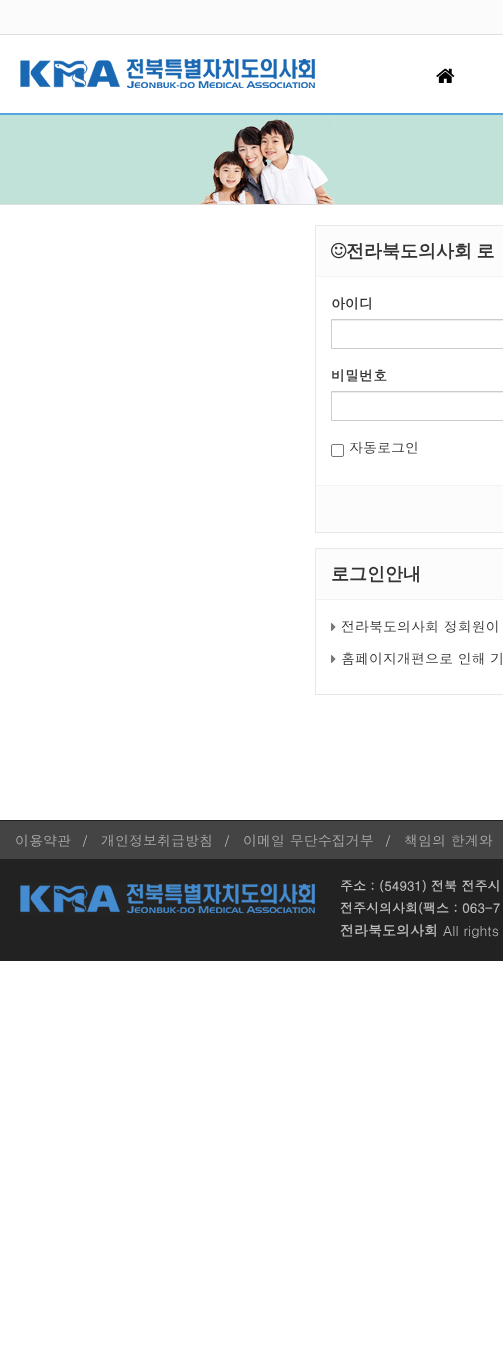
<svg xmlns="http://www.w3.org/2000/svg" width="503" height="1354">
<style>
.a{font:bold 18px WenQuanYi Zen Hei;fill:#333}
.b{font:bold 14px Dotum;fill:#333}
.c{font:14px Dotum;fill:#333}
.d{font:14px Dotum;fill:#aaa}
.e{font:14px Dotum;fill:#ccc}
.f{font:bold 13px Dotum;fill:#bbb}
.g{font:bold 14px Dotum;fill:#bbb}
.h{font:14px Dotum;fill:#bbb}
</style>
<rect width="100%" height="100%" fill="#fff"/>
<path fill="#fbfbfb" d="M0 0h503v34H0z"/>
<path fill="#dfdfdf" d="M0 34h503v1H0z"/>
<path fill="#56a5dc" d="M0 113h503v2H0z"/>
<image href="1.png" x="20" y="58" width="295" height="32"/>
<image href="2.png" x="436" y="68" width="19" height="15"/>
<image href="3.png" x="0" y="115" width="503" height="89"/>
<path fill="#dfdfdf" d="M0 204h503v1H0z"/>
<path fill="#fcfcfc" stroke="#e7e7e7" d="M315.5 225.5h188v307H315.5z"/>
<path fill="#f3f3f3" d="M316 276h187v1H316z"/>
<image href="4.png" x="331" y="242" width="16" height="17"/>
<path fill="#fff" d="M316 277h187v208H316z"/>
<path fill="#ececec" d="M332 320h171v1H332z"/>
<path fill="none" stroke="#ccc" d="M331.5 319.5h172v29H331.5z"/>
<path fill="#ececec" d="M332 392h171v1H332z"/>
<path fill="none" stroke="#ccc" d="M331.5 391.5h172v29H331.5z"/>
<rect fill="none" stroke="#767676" x="331.5" y="444.5" width="12" height="12" rx="1.5"/>
<path fill="#f3f3f3" d="M316 485h187v1H316z"/>
<path fill="#fcfcfc" d="M316 549h187v50H316z"/>
<path fill="none" stroke="#e7e7e7" d="M315.5 548.5h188v146H315.5z"/>
<path fill="#f3f3f3" d="M316 599h187v1H316z"/>
<image href="5.png" x="331" y="623" width="5" height="8"/>
<image href="5.png" x="331" y="655" width="5" height="8"/>
<path fill="#444" d="M0 821h503v38H0z"/>
<path fill="#222" d="M0 820h503v1H0z"/>
<path fill="#222" d="M0 859h503v102H0z"/>
<image href="6.png" x="20" y="883" width="295" height="32"/>
<text class="a" x="346" y="257" word-spacing="-1">전라북도의사회 로</text>
<text class="b" x="331" y="309">아이디</text>
<text class="b" x="331" y="381">비밀번호</text>
<text class="c" x="349" y="453">자동로그인</text>
<text class="a" x="331" y="580">로그인안내</text>
<text class="c" x="341" y="632">전라북도의사회 정회원이</text>
<text class="c" x="341" y="664">홈페이지개편으로 인해 기</text>
<text class="d" x="15" y="846">이용약관</text>
<text class="e" x="82" y="846">/</text>
<text class="d" x="101" y="846">개인정보취급방침</text>
<text class="e" x="224" y="846">/</text>
<text class="d" x="243" y="846">이메일 무단수집거부</text>
<text class="e" x="385" y="846">/</text>
<text class="d" x="404" y="846">책임의 한계와</text>
<text class="f" x="340" y="891">주소 : (54931) 전북 전주시</text>
<text class="f" x="340" y="913">전주시의사회(팩스 : 063-7</text>
<text class="g" x="340" y="936">전라북도의사회</text>
<text class="h" x="443" y="936">All rights</text>
</svg>
